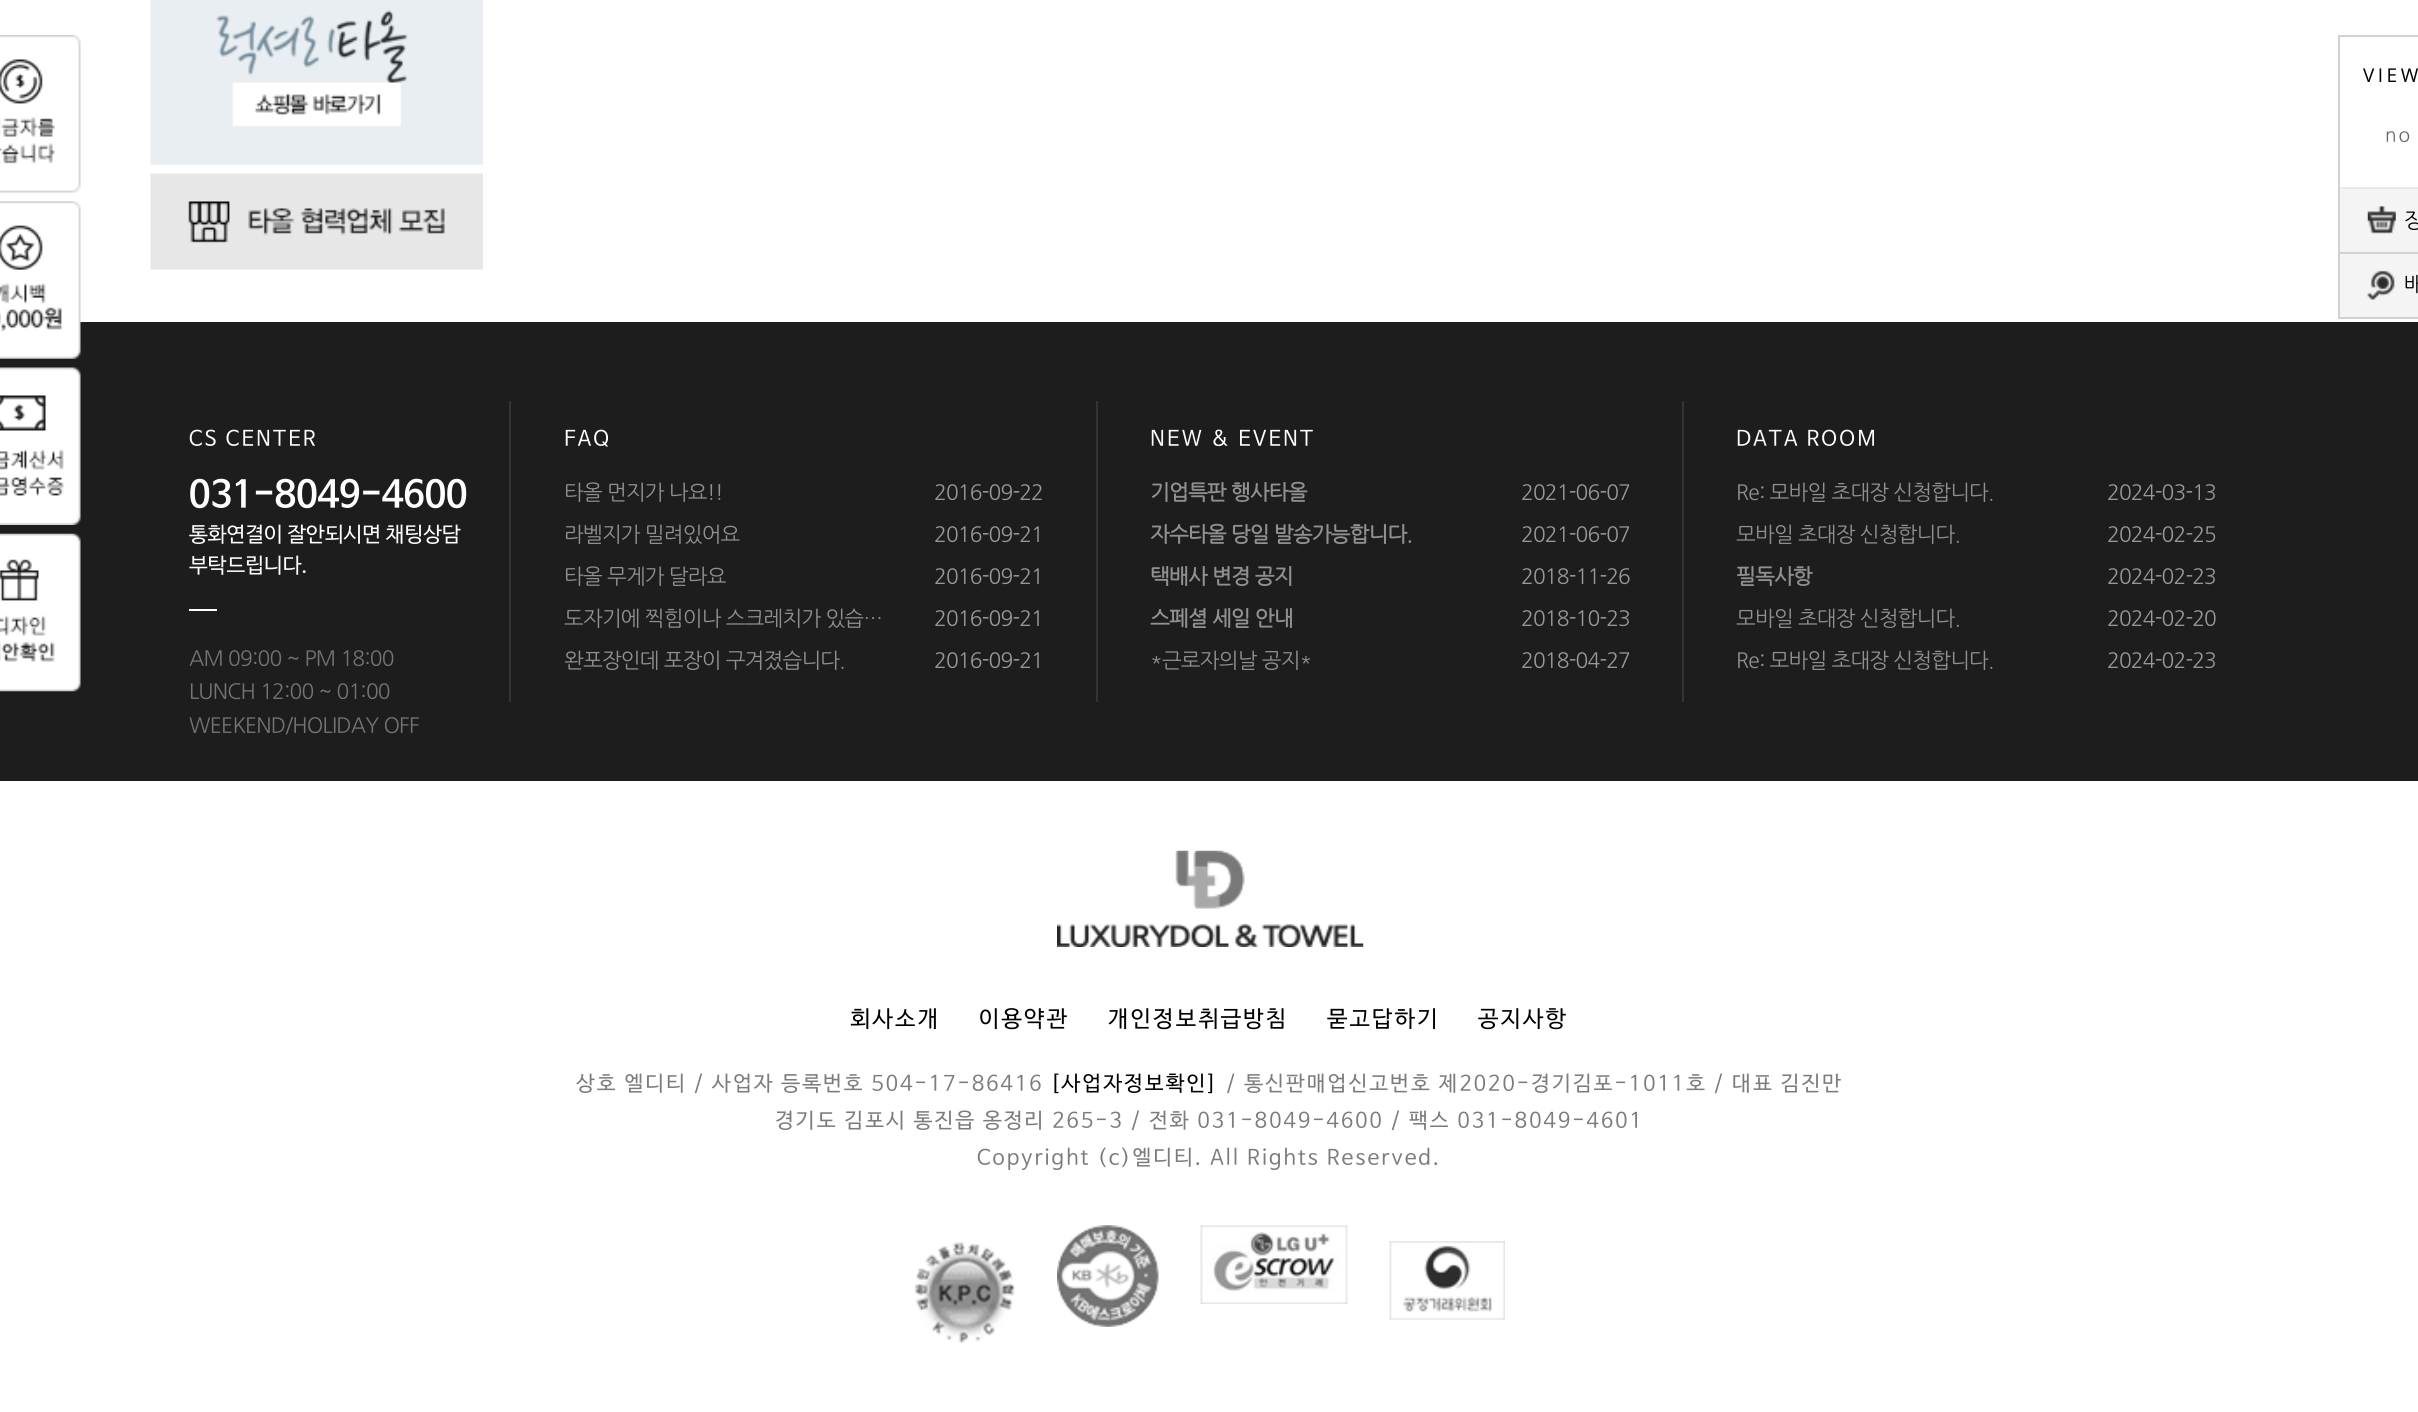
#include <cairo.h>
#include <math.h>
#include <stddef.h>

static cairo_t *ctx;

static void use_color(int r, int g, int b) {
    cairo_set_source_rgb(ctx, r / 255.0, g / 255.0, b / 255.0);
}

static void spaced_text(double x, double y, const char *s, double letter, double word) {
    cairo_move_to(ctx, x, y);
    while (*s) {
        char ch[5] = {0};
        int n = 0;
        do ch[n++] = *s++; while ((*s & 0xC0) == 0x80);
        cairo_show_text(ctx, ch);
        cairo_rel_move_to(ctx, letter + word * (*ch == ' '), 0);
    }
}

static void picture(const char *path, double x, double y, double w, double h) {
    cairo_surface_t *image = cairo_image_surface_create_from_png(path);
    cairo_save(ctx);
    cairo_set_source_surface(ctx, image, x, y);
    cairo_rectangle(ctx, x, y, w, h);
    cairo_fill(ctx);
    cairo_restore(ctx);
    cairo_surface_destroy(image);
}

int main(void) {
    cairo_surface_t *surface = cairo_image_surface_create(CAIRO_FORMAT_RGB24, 2418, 1412);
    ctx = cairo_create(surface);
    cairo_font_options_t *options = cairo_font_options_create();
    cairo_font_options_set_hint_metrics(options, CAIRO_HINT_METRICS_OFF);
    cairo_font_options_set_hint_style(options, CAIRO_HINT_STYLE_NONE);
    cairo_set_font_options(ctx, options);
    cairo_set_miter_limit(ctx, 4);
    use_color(255, 255, 255);
    cairo_paint(ctx);
    picture("img1.png", 0, 35, 81, 158);
    use_color(29, 29, 29);
    cairo_rectangle(ctx, 0, 322, 2418, 459);
    cairo_fill(ctx);
    picture("img2.png", 0, 201, 81, 158);
    picture("img3.png", 0, 367, 81, 158);
    picture("img4.png", 0, 533, 81, 159);
    picture("img5.png", 150, 0, 333, 165);
    picture("img6.png", 150, 173, 333, 97);
    cairo_rectangle(ctx, 2339, 36, 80, 282);
    use_color(209, 209, 209);
    cairo_stroke(ctx);
    cairo_select_font_face(ctx, "Open Sans", CAIRO_FONT_SLANT_NORMAL, CAIRO_FONT_WEIGHT_NORMAL);
    cairo_set_font_size(ctx, 19);
    use_color(0, 0, 0);
    spaced_text(2363, 82, "VIEW", 3.5, 0);
    cairo_select_font_face(ctx, "NanumGothic", CAIRO_FONT_SLANT_NORMAL, CAIRO_FONT_WEIGHT_NORMAL);
    use_color(102, 102, 102);
    spaced_text(2385, 141, "no", 2, 0);
    use_color(233, 233, 233);
    cairo_rectangle(ctx, 2340, 187, 78, 2);
    cairo_fill(ctx);
    use_color(244, 244, 244);
    cairo_rectangle(ctx, 2340, 189, 78, 63);
    cairo_fill(ctx);
    picture("img7.png", 2367, 206, 29, 28);
    use_color(209, 209, 209);
    cairo_rectangle(ctx, 2340, 252, 78, 2);
    cairo_fill(ctx);
    cairo_set_font_size(ctx, 21);
    use_color(0, 0, 0);
    spaced_text(2404, 227, "장", 2, 0);
    use_color(244, 244, 244);
    cairo_rectangle(ctx, 2340, 254, 78, 63);
    cairo_fill(ctx);
    picture("img8.png", 2367, 270, 28, 30);
    use_color(0, 0, 0);
    spaced_text(2404, 291, "배", 2, 0);
    cairo_select_font_face(ctx, "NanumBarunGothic", CAIRO_FONT_SLANT_NORMAL, CAIRO_FONT_WEIGHT_NORMAL);
    use_color(255, 255, 255);
    spaced_text(189, 445, "CS CENTER", 2.1, 0);
    cairo_select_font_face(ctx, "NanumBarunGothic", CAIRO_FONT_SLANT_NORMAL, CAIRO_FONT_WEIGHT_BOLD);
    cairo_set_font_size(ctx, 36.75);
    cairo_move_to(ctx, 189, 506);
    cairo_show_text(ctx, "031-8049-4600");
    cairo_select_font_face(ctx, "NanumBarunGothic", CAIRO_FONT_SLANT_NORMAL, CAIRO_FONT_WEIGHT_NORMAL);
    cairo_set_font_size(ctx, 21);
    cairo_move_to(ctx, 189, 541);
    cairo_show_text(ctx, "통화연결이 잘안되시면 채팅상담");
    cairo_move_to(ctx, 189, 572);
    cairo_show_text(ctx, "부탁드립니다.");
    cairo_rectangle(ctx, 189, 609, 28, 2);
    cairo_fill(ctx);
    cairo_select_font_face(ctx, "NanumGothic", CAIRO_FONT_SLANT_NORMAL, CAIRO_FONT_WEIGHT_NORMAL);
    use_color(116, 116, 116);
    spaced_text(189, 665, "AM 09:00 ~ PM 18:00", -0.8, 0);
    spaced_text(189, 698, "LUNCH 12:00 ~ 01:00", -0.8, 0);
    spaced_text(189, 732, "WEEKEND/HOLIDAY OFF", -0.8, 0);
    use_color(52, 52, 52);
    cairo_rectangle(ctx, 509, 401, 2, 301);
    cairo_fill(ctx);
    cairo_select_font_face(ctx, "NanumBarunGothic", CAIRO_FONT_SLANT_NORMAL, CAIRO_FONT_WEIGHT_NORMAL);
    use_color(255, 255, 255);
    spaced_text(564, 445, "FAQ", 2.1, 0);
    cairo_select_font_face(ctx, "NanumGothic", CAIRO_FONT_SLANT_NORMAL, CAIRO_FONT_WEIGHT_NORMAL);
    use_color(144, 144, 144);
    spaced_text(564, 499, "타올 먼지가 나요!!", -0.8, 0);
    use_color(153, 153, 153);
    spaced_text(934, 499, "2016-09-22", -0.8, 0);
    use_color(144, 144, 144);
    spaced_text(564, 541, "라벨지가 밀려있어요", -0.8, 0);
    use_color(153, 153, 153);
    spaced_text(934, 541, "2016-09-21", -0.8, 0);
    use_color(144, 144, 144);
    spaced_text(564, 583, "타올 무게가 달라요", -0.8, 0);
    use_color(153, 153, 153);
    spaced_text(934, 583, "2016-09-21", -0.8, 0);
    use_color(144, 144, 144);
    spaced_text(564, 625, "도자기에 찍힘이나 스크레치가 있습…", -0.8, 0);
    use_color(153, 153, 153);
    spaced_text(934, 625, "2016-09-21", -0.8, 0);
    use_color(144, 144, 144);
    spaced_text(564, 667, "완포장인데 포장이 구겨졌습니다.", -0.8, 0);
    use_color(153, 153, 153);
    spaced_text(934, 667, "2016-09-21", -0.8, 0);
    use_color(52, 52, 52);
    cairo_rectangle(ctx, 1096, 401, 2, 301);
    cairo_fill(ctx);
    cairo_select_font_face(ctx, "NanumBarunGothic", CAIRO_FONT_SLANT_NORMAL, CAIRO_FONT_WEIGHT_NORMAL);
    use_color(255, 255, 255);
    spaced_text(1150, 445, "NEW & EVENT", 2.1, 0);
    cairo_select_font_face(ctx, "NanumGothic", CAIRO_FONT_SLANT_NORMAL, CAIRO_FONT_WEIGHT_BOLD);
    use_color(144, 144, 144);
    spaced_text(1150, 499, "기업특판 행사타올", -0.8, 0);
    cairo_select_font_face(ctx, "NanumGothic", CAIRO_FONT_SLANT_NORMAL, CAIRO_FONT_WEIGHT_NORMAL);
    use_color(153, 153, 153);
    spaced_text(1521, 499, "2021-06-07", -0.8, 0);
    cairo_select_font_face(ctx, "NanumGothic", CAIRO_FONT_SLANT_NORMAL, CAIRO_FONT_WEIGHT_BOLD);
    use_color(144, 144, 144);
    spaced_text(1150, 541, "자수타올 당일 발송가능합니다.", -0.8, 0);
    cairo_select_font_face(ctx, "NanumGothic", CAIRO_FONT_SLANT_NORMAL, CAIRO_FONT_WEIGHT_NORMAL);
    use_color(153, 153, 153);
    spaced_text(1521, 541, "2021-06-07", -0.8, 0);
    cairo_select_font_face(ctx, "NanumGothic", CAIRO_FONT_SLANT_NORMAL, CAIRO_FONT_WEIGHT_BOLD);
    use_color(144, 144, 144);
    spaced_text(1150, 583, "택배사 변경 공지", -0.8, 0);
    cairo_select_font_face(ctx, "NanumGothic", CAIRO_FONT_SLANT_NORMAL, CAIRO_FONT_WEIGHT_NORMAL);
    use_color(153, 153, 153);
    spaced_text(1521, 583, "2018-11-26", -0.8, 0);
    cairo_select_font_face(ctx, "NanumGothic", CAIRO_FONT_SLANT_NORMAL, CAIRO_FONT_WEIGHT_BOLD);
    use_color(144, 144, 144);
    spaced_text(1150, 625, "스페셜 세일 안내", -0.8, 0);
    cairo_select_font_face(ctx, "NanumGothic", CAIRO_FONT_SLANT_NORMAL, CAIRO_FONT_WEIGHT_NORMAL);
    use_color(153, 153, 153);
    spaced_text(1521, 625, "2018-10-23", -0.8, 0);
    use_color(144, 144, 144);
    spaced_text(1150, 667, "*근로자의날 공지*", -0.8, 0);
    use_color(153, 153, 153);
    spaced_text(1521, 667, "2018-04-27", -0.8, 0);
    use_color(52, 52, 52);
    cairo_rectangle(ctx, 1682, 401, 2, 301);
    cairo_fill(ctx);
    cairo_select_font_face(ctx, "NanumBarunGothic", CAIRO_FONT_SLANT_NORMAL, CAIRO_FONT_WEIGHT_NORMAL);
    use_color(255, 255, 255);
    spaced_text(1736, 445, "DATA ROOM", 2.1, 0);
    cairo_select_font_face(ctx, "NanumGothic", CAIRO_FONT_SLANT_NORMAL, CAIRO_FONT_WEIGHT_NORMAL);
    use_color(144, 144, 144);
    spaced_text(1736, 499, "Re: 모바일 초대장 신청합니다.", -0.8, 0);
    use_color(153, 153, 153);
    spaced_text(2107, 499, "2024-03-13", -0.8, 0);
    use_color(144, 144, 144);
    spaced_text(1736, 541, "모바일 초대장 신청합니다.", -0.8, 0);
    use_color(153, 153, 153);
    spaced_text(2107, 541, "2024-02-25", -0.8, 0);
    cairo_select_font_face(ctx, "NanumGothic", CAIRO_FONT_SLANT_NORMAL, CAIRO_FONT_WEIGHT_BOLD);
    use_color(144, 144, 144);
    spaced_text(1736, 583, "필독사항", -0.8, 0);
    cairo_select_font_face(ctx, "NanumGothic", CAIRO_FONT_SLANT_NORMAL, CAIRO_FONT_WEIGHT_NORMAL);
    use_color(153, 153, 153);
    spaced_text(2107, 583, "2024-02-23", -0.8, 0);
    use_color(144, 144, 144);
    spaced_text(1736, 625, "모바일 초대장 신청합니다.", -0.8, 0);
    use_color(153, 153, 153);
    spaced_text(2107, 625, "2024-02-20", -0.8, 0);
    use_color(144, 144, 144);
    spaced_text(1736, 667, "Re: 모바일 초대장 신청합니다.", -0.8, 0);
    use_color(153, 153, 153);
    spaced_text(2107, 667, "2024-02-23", -0.8, 0);
    picture("img9.png", 1057, 850, 307, 97);
    cairo_select_font_face(ctx, "NanumBarunGothic", CAIRO_FONT_SLANT_NORMAL, CAIRO_FONT_WEIGHT_NORMAL);
    cairo_set_font_size(ctx, 22.75);
    use_color(0, 0, 0);
    spaced_text(850, 1026, "회사소개", 2.25, 0);
    spaced_text(979, 1026, "이용약관", 2.25, 0);
    spaced_text(1108, 1026, "개인정보취급방침", 2.25, 0);
    spaced_text(1327, 1026, "묻고답하기", 2.25, 0);
    spaced_text(1478, 1026, "공지사항", 2.25, 0);
    cairo_set_font_size(ctx, 21);
    use_color(124, 124, 124);
    spaced_text(576, 1090, "상호 엘디티 / 사업자 등록번호 504-17-86416", 2.1, 0);
    use_color(0, 0, 0);
    spaced_text(1050, 1090, "[사업자정보확인]", 2.1, 0);
    use_color(124, 124, 124);
    spaced_text(1226, 1090, "/ 통신판매업신고번호 제2020-경기김포-1011호 / 대표 김진만", 2.1, 0);
    spaced_text(775, 1127, "경기도 김포시 통진읍 옹정리 265-3 / 전화 031-8049-4600 / 팩스 031-8049-4601", 2.1, 0);
    spaced_text(977, 1164, "Copyright (c)엘디티. All Rights Reserved.", 2.1, 0);
    picture("img10.png", 914, 1241, 101, 102);
    picture("img11.png", 1057, 1225, 102, 102);
    picture("img12.png", 1200, 1225, 148, 79);
    picture("img13.png", 1389, 1241, 116, 79);
    cairo_surface_write_to_png(surface, "result.png");
    cairo_font_options_destroy(options);
    cairo_destroy(ctx);
    cairo_surface_destroy(surface);
    return 0;
}
